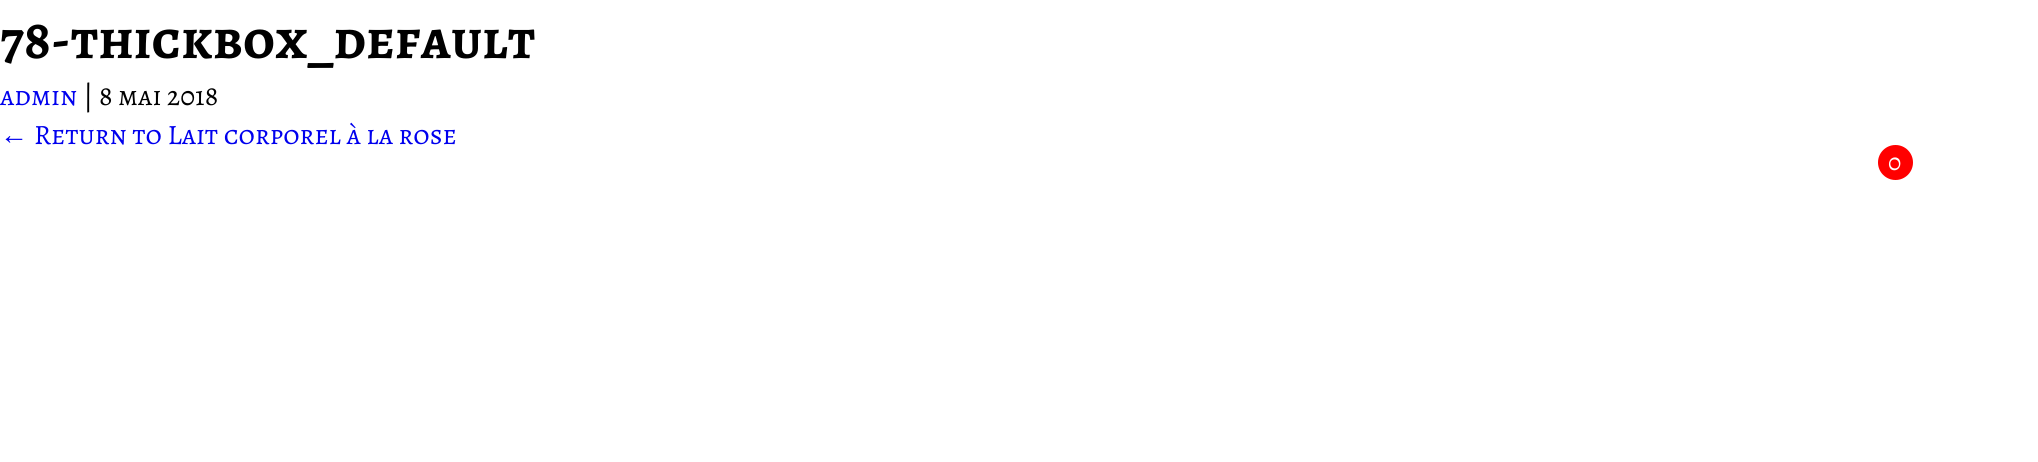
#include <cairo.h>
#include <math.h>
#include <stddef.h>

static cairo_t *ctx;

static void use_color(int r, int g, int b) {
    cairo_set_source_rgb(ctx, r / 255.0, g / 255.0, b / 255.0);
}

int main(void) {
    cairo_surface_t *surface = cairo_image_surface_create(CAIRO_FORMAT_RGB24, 2038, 462);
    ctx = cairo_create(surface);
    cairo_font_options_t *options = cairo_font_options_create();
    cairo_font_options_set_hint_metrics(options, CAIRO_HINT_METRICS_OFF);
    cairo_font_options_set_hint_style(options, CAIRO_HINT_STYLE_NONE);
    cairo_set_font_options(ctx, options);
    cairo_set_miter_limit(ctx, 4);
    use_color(255, 255, 255);
    cairo_paint(ctx);
    cairo_select_font_face(ctx, "Alegreya SC", CAIRO_FONT_SLANT_NORMAL, CAIRO_FONT_WEIGHT_BOLD);
    cairo_set_font_size(ctx, 56);
    use_color(0, 0, 0);
    cairo_move_to(ctx, 0, 58);
    cairo_show_text(ctx, "78-thickbox_default");
    cairo_select_font_face(ctx, "Alegreya SC", CAIRO_FONT_SLANT_NORMAL, CAIRO_FONT_WEIGHT_NORMAL);
    cairo_set_font_size(ctx, 28);
    use_color(0, 0, 238);
    cairo_move_to(ctx, 0, 105);
    cairo_show_text(ctx, "admin");
    use_color(0, 0, 0);
    cairo_move_to(ctx, 83, 105);
    cairo_show_text(ctx, "| 8 mai 2018");
    cairo_select_font_face(ctx, "Liberation Serif", CAIRO_FONT_SLANT_NORMAL, CAIRO_FONT_WEIGHT_NORMAL);
    use_color(0, 0, 238);
    cairo_move_to(ctx, 0, 144);
    cairo_show_text(ctx, "←");
    cairo_select_font_face(ctx, "Alegreya SC", CAIRO_FONT_SLANT_NORMAL, CAIRO_FONT_WEIGHT_NORMAL);
    cairo_move_to(ctx, 34, 144);
    cairo_show_text(ctx, "Return to Lait corporel à la rose");
    use_color(255, 0, 0);
    cairo_new_path(ctx);
    cairo_arc(ctx, 1895.5, 162.5, 17.5, 0, 2 * M_PI);
    cairo_fill(ctx);
    cairo_set_font_size(ctx, 25);
    use_color(255, 255, 255);
    cairo_move_to(ctx, 1888, 170);
    cairo_show_text(ctx, "0");
    cairo_surface_write_to_png(surface, "result.png");
    cairo_font_options_destroy(options);
    cairo_destroy(ctx);
    cairo_surface_destroy(surface);
    return 0;
}
